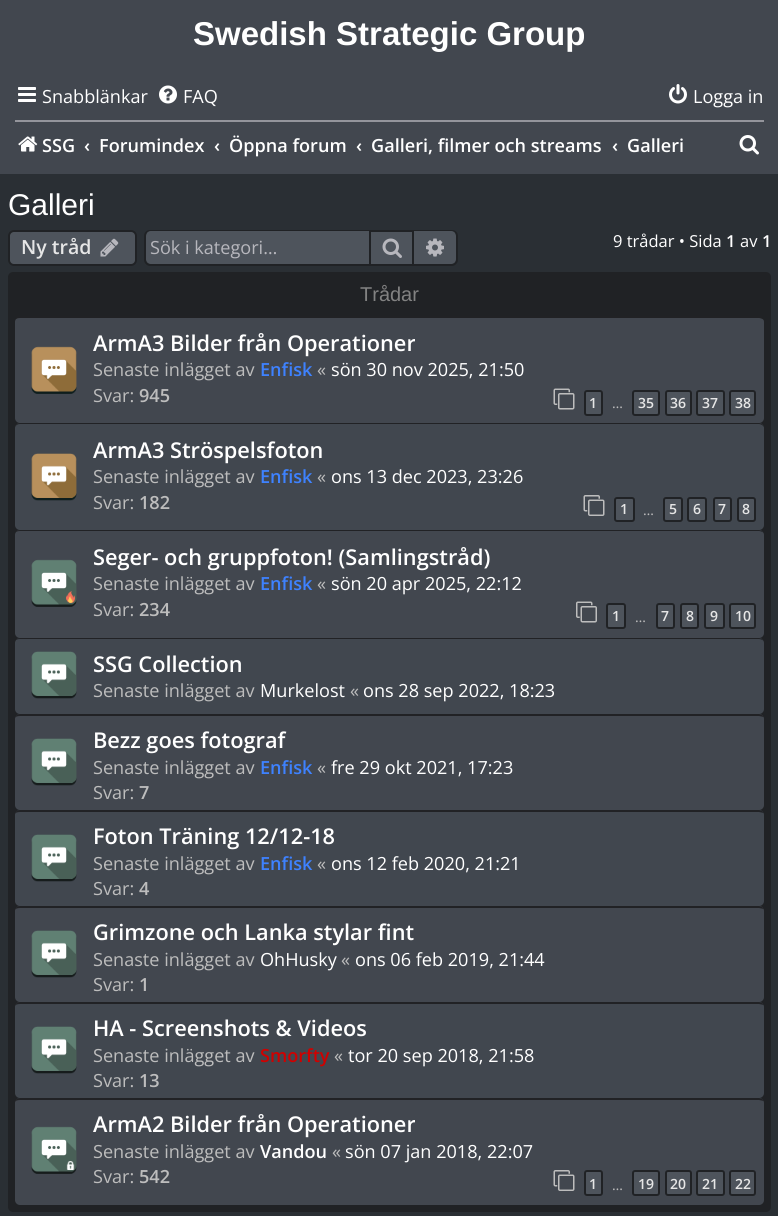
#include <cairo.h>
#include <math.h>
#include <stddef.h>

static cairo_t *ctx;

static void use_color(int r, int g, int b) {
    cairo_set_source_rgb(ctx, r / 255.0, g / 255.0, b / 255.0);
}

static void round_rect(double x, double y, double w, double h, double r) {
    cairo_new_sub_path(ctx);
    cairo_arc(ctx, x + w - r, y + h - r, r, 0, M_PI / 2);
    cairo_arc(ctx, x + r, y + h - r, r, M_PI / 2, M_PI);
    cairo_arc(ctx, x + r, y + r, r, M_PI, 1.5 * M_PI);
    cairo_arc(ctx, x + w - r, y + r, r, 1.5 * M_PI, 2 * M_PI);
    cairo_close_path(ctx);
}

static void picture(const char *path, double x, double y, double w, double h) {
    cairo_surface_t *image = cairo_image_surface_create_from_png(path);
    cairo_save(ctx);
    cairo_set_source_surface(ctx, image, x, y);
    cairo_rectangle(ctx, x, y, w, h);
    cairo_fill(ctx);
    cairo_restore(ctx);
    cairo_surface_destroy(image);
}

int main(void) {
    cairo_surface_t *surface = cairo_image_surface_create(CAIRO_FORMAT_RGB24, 778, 1216);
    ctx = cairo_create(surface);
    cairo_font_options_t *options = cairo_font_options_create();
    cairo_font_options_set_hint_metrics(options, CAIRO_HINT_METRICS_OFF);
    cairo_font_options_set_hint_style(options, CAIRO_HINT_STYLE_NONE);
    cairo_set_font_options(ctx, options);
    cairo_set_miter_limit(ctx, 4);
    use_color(42, 47, 52);
    cairo_paint(ctx);
    use_color(66, 71, 79);
    cairo_rectangle(ctx, 0, 0, 778, 174);
    cairo_fill(ctx);
    cairo_select_font_face(ctx, "Liberation Sans", CAIRO_FONT_SLANT_NORMAL, CAIRO_FONT_WEIGHT_BOLD);
    cairo_set_font_size(ctx, 33);
    use_color(255, 255, 255);
    cairo_move_to(ctx, 193, 45);
    cairo_show_text(ctx, "Swedish Strategic Group");
    picture("img1.png", 18, 87, 18, 15);
    cairo_select_font_face(ctx, "Open Sans", CAIRO_FONT_SLANT_NORMAL, CAIRO_FONT_WEIGHT_NORMAL);
    cairo_set_font_size(ctx, 18.1);
    cairo_move_to(ctx, 42, 103);
    cairo_show_text(ctx, "Snabblänkar");
    picture("img2.png", 159, 85, 18, 19);
    cairo_move_to(ctx, 183, 103);
    cairo_show_text(ctx, "FAQ");
    picture("img3.png", 669, 84, 18, 20);
    cairo_move_to(ctx, 693, 103);
    cairo_show_text(ctx, "Logga in");
    use_color(148, 149, 156);
    cairo_rectangle(ctx, 15, 120, 749, 2);
    cairo_fill(ctx);
    picture("img4.png", 18, 136, 20, 16);
    cairo_select_font_face(ctx, "Open Sans SemiBold", CAIRO_FONT_SLANT_NORMAL, CAIRO_FONT_WEIGHT_NORMAL);
    use_color(255, 255, 255);
    cairo_move_to(ctx, 42, 152);
    cairo_show_text(ctx, "SSG");
    cairo_move_to(ctx, 84, 152);
    cairo_show_text(ctx, "‹");
    cairo_move_to(ctx, 99, 152);
    cairo_show_text(ctx, "Forumindex");
    cairo_move_to(ctx, 214, 152);
    cairo_show_text(ctx, "‹");
    cairo_move_to(ctx, 229, 152);
    cairo_show_text(ctx, "Öppna forum");
    cairo_move_to(ctx, 356, 152);
    cairo_show_text(ctx, "‹");
    cairo_move_to(ctx, 371, 152);
    cairo_show_text(ctx, "Galleri, filmer och streams");
    cairo_move_to(ctx, 612, 152);
    cairo_show_text(ctx, "‹");
    cairo_move_to(ctx, 627, 152);
    cairo_show_text(ctx, "Galleri");
    picture("img5.png", 739, 135, 20, 20);
    cairo_select_font_face(ctx, "Liberation Sans", CAIRO_FONT_SLANT_NORMAL, CAIRO_FONT_WEIGHT_NORMAL);
    cairo_set_font_size(ctx, 30);
    cairo_move_to(ctx, 8, 215);
    cairo_show_text(ctx, "Galleri");
    use_color(78, 84, 92);
    round_rect(9, 231, 127, 34, 5);
    cairo_fill_preserve(ctx);
    use_color(32, 34, 37);
    cairo_stroke(ctx);
    cairo_select_font_face(ctx, "Open Sans SemiBold", CAIRO_FONT_SLANT_NORMAL, CAIRO_FONT_WEIGHT_NORMAL);
    cairo_set_font_size(ctx, 19.5);
    use_color(230, 230, 230);
    cairo_move_to(ctx, 21, 254);
    cairo_show_text(ctx, "Ny tråd");
    picture("img6.png", 100, 238, 19, 19);
    use_color(78, 84, 92);
    cairo_new_path(ctx);
    cairo_move_to(ctx, 151, 231);
    cairo_line_to(ctx, 369, 231);
    cairo_line_to(ctx, 369, 264);
    cairo_line_to(ctx, 151, 264);
    cairo_curve_to(ctx, 148, 264, 146, 262, 146, 259);
    cairo_line_to(ctx, 146, 236);
    cairo_curve_to(ctx, 146, 233, 148, 231, 151, 231);
    cairo_close_path(ctx);
    cairo_fill(ctx);
    use_color(32, 34, 37);
    cairo_set_fill_rule(ctx, CAIRO_FILL_RULE_EVEN_ODD);
    cairo_new_path(ctx);
    cairo_move_to(ctx, 150, 230);
    cairo_line_to(ctx, 369, 230);
    cairo_line_to(ctx, 369, 266);
    cairo_line_to(ctx, 150, 266);
    cairo_curve_to(ctx, 147, 266, 144, 263, 144, 260);
    cairo_line_to(ctx, 144, 236);
    cairo_curve_to(ctx, 144, 232, 147, 230, 150, 230);
    cairo_close_path(ctx);
    cairo_move_to(ctx, 150, 231);
    cairo_line_to(ctx, 369, 231);
    cairo_line_to(ctx, 369, 264);
    cairo_line_to(ctx, 150, 264);
    cairo_curve_to(ctx, 148, 264, 146, 262, 146, 260);
    cairo_line_to(ctx, 146, 236);
    cairo_curve_to(ctx, 146, 233, 148, 231, 150, 231);
    cairo_close_path(ctx);
    cairo_fill(ctx);
    cairo_select_font_face(ctx, "Open Sans", CAIRO_FONT_SLANT_NORMAL, CAIRO_FONT_WEIGHT_NORMAL);
    cairo_set_font_size(ctx, 18.1);
    use_color(183, 183, 189);
    cairo_move_to(ctx, 150, 254);
    cairo_show_text(ctx, "Sök i kategori…");
    use_color(78, 84, 92);
    cairo_rectangle(ctx, 370, 231, 43, 34);
    cairo_fill_preserve(ctx);
    use_color(32, 34, 37);
    cairo_stroke(ctx);
    picture("img7.png", 382, 238, 20, 20);
    use_color(78, 84, 92);
    cairo_new_path(ctx);
    cairo_move_to(ctx, 414, 231);
    cairo_line_to(ctx, 451, 231);
    cairo_curve_to(ctx, 454, 231, 456, 233, 456, 236);
    cairo_line_to(ctx, 456, 259);
    cairo_curve_to(ctx, 456, 262, 454, 264, 451, 264);
    cairo_line_to(ctx, 414, 264);
    cairo_close_path(ctx);
    cairo_fill(ctx);
    use_color(32, 34, 37);
    cairo_new_path(ctx);
    cairo_move_to(ctx, 414, 230);
    cairo_line_to(ctx, 452, 230);
    cairo_curve_to(ctx, 455, 230, 458, 232, 458, 236);
    cairo_line_to(ctx, 458, 260);
    cairo_curve_to(ctx, 458, 263, 455, 266, 452, 266);
    cairo_line_to(ctx, 414, 266);
    cairo_close_path(ctx);
    cairo_move_to(ctx, 414, 231);
    cairo_line_to(ctx, 452, 231);
    cairo_curve_to(ctx, 454, 231, 456, 233, 456, 236);
    cairo_line_to(ctx, 456, 260);
    cairo_curve_to(ctx, 456, 262, 454, 264, 452, 264);
    cairo_line_to(ctx, 414, 264);
    cairo_close_path(ctx);
    cairo_fill(ctx);
    picture("img8.png", 426, 238, 18, 19);
    cairo_set_font_size(ctx, 16.5);
    use_color(255, 255, 255);
    cairo_move_to(ctx, 613, 247);
    cairo_show_text(ctx, "9 trådar • Sida");
    cairo_select_font_face(ctx, "Open Sans SemiBold", CAIRO_FONT_SLANT_NORMAL, CAIRO_FONT_WEIGHT_NORMAL);
    cairo_move_to(ctx, 726, 247);
    cairo_show_text(ctx, "1");
    cairo_select_font_face(ctx, "Open Sans", CAIRO_FONT_SLANT_NORMAL, CAIRO_FONT_WEIGHT_NORMAL);
    cairo_move_to(ctx, 740, 247);
    cairo_show_text(ctx, "av");
    cairo_select_font_face(ctx, "Open Sans SemiBold", CAIRO_FONT_SLANT_NORMAL, CAIRO_FONT_WEIGHT_NORMAL);
    cairo_move_to(ctx, 762, 247);
    cairo_show_text(ctx, "1");
    use_color(32, 34, 37);
    round_rect(8, 272, 763, 940, 5);
    cairo_fill(ctx);
    cairo_select_font_face(ctx, "Liberation Sans", CAIRO_FONT_SLANT_NORMAL, CAIRO_FONT_WEIGHT_NORMAL);
    cairo_set_font_size(ctx, 20);
    use_color(130, 130, 130);
    cairo_move_to(ctx, 360, 301);
    cairo_show_text(ctx, "Trådar");
    use_color(66, 71, 79);
    round_rect(15, 317, 749, 106, 5);
    cairo_fill(ctx);
    use_color(33, 34, 37);
    cairo_set_fill_rule(ctx, CAIRO_FILL_RULE_WINDING);
    cairo_new_path(ctx);
    cairo_move_to(ctx, 20, 318);
    cairo_curve_to(ctx, 17, 318, 15, 319, 15, 321);
    cairo_curve_to(ctx, 15, 320, 16, 317, 18, 316);
    cairo_line_to(ctx, 761, 316);
    cairo_curve_to(ctx, 762, 317, 764, 319, 764, 320);
    cairo_curve_to(ctx, 763, 319, 760, 318, 759, 318);
    cairo_close_path(ctx);
    cairo_fill(ctx);
    picture("img9.png", 31, 346, 46, 48);
    cairo_select_font_face(ctx, "Open Sans SemiBold", CAIRO_FONT_SLANT_NORMAL, CAIRO_FONT_WEIGHT_NORMAL);
    cairo_set_font_size(ctx, 21.75);
    use_color(255, 255, 255);
    cairo_move_to(ctx, 93, 351);
    cairo_show_text(ctx, "ArmA3 Bilder från Operationer");
    cairo_select_font_face(ctx, "Open Sans", CAIRO_FONT_SLANT_NORMAL, CAIRO_FONT_WEIGHT_NORMAL);
    cairo_set_font_size(ctx, 18.1);
    use_color(189, 189, 189);
    cairo_move_to(ctx, 93, 376);
    cairo_show_text(ctx, "Senaste inlägget av");
    cairo_select_font_face(ctx, "Open Sans SemiBold", CAIRO_FONT_SLANT_NORMAL, CAIRO_FONT_WEIGHT_NORMAL);
    use_color(62, 130, 255);
    cairo_move_to(ctx, 260, 376);
    cairo_show_text(ctx, "Enfisk");
    cairo_select_font_face(ctx, "Open Sans", CAIRO_FONT_SLANT_NORMAL, CAIRO_FONT_WEIGHT_NORMAL);
    use_color(189, 189, 189);
    cairo_move_to(ctx, 317, 376);
    cairo_show_text(ctx, "«");
    use_color(255, 255, 255);
    cairo_move_to(ctx, 331, 376);
    cairo_show_text(ctx, "sön 30 nov 2025, 21:50");
    use_color(189, 189, 189);
    cairo_move_to(ctx, 93, 402);
    cairo_show_text(ctx, "Svar:");
    cairo_select_font_face(ctx, "Open Sans SemiBold", CAIRO_FONT_SLANT_NORMAL, CAIRO_FONT_WEIGHT_NORMAL);
    cairo_move_to(ctx, 139, 402);
    cairo_show_text(ctx, "945");
    picture("img10.png", 553, 388, 22, 22);
    use_color(78, 84, 92);
    round_rect(585, 391, 17, 24, 2);
    cairo_fill_preserve(ctx);
    use_color(32, 34, 37);
    cairo_stroke(ctx);
    cairo_set_font_size(ctx, 14);
    use_color(230, 230, 230);
    cairo_move_to(ctx, 589, 408);
    cairo_show_text(ctx, "1");
    cairo_select_font_face(ctx, "Open Sans", CAIRO_FONT_SLANT_NORMAL, CAIRO_FONT_WEIGHT_NORMAL);
    use_color(189, 189, 189);
    cairo_move_to(ctx, 612, 408);
    cairo_show_text(ctx, "…");
    use_color(78, 84, 92);
    round_rect(633, 391, 26, 24, 2);
    cairo_fill_preserve(ctx);
    use_color(32, 34, 37);
    cairo_stroke(ctx);
    cairo_select_font_face(ctx, "Open Sans SemiBold", CAIRO_FONT_SLANT_NORMAL, CAIRO_FONT_WEIGHT_NORMAL);
    use_color(230, 230, 230);
    cairo_move_to(ctx, 638, 408);
    cairo_show_text(ctx, "35");
    use_color(78, 84, 92);
    round_rect(666, 391, 25, 24, 2);
    cairo_fill_preserve(ctx);
    use_color(32, 34, 37);
    cairo_stroke(ctx);
    use_color(230, 230, 230);
    cairo_move_to(ctx, 670, 408);
    cairo_show_text(ctx, "36");
    use_color(78, 84, 92);
    round_rect(697, 391, 27, 24, 2);
    cairo_fill_preserve(ctx);
    use_color(32, 34, 37);
    cairo_stroke(ctx);
    use_color(230, 230, 230);
    cairo_move_to(ctx, 702, 408);
    cairo_show_text(ctx, "37");
    use_color(78, 84, 92);
    round_rect(730, 391, 25, 24, 2);
    cairo_fill_preserve(ctx);
    use_color(32, 34, 37);
    cairo_stroke(ctx);
    use_color(230, 230, 230);
    cairo_move_to(ctx, 735, 408);
    cairo_show_text(ctx, "38");
    use_color(65, 71, 79);
    round_rect(15, 423, 749, 107, 5);
    cairo_fill(ctx);
    use_color(33, 34, 37);
    cairo_new_path(ctx);
    cairo_move_to(ctx, 20, 423);
    cairo_curve_to(ctx, 17, 423, 15, 425, 15, 428);
    cairo_curve_to(ctx, 15, 426, 17, 424, 20, 424);
    cairo_line_to(ctx, 759, 424);
    cairo_curve_to(ctx, 760, 424, 763, 425, 764, 427);
    cairo_curve_to(ctx, 764, 425, 761, 423, 759, 423);
    cairo_close_path(ctx);
    cairo_fill(ctx);
    picture("img11.png", 31, 453, 46, 48);
    cairo_set_font_size(ctx, 21.75);
    use_color(255, 255, 255);
    cairo_move_to(ctx, 93, 458);
    cairo_show_text(ctx, "ArmA3 Ströspelsfoton");
    cairo_select_font_face(ctx, "Open Sans", CAIRO_FONT_SLANT_NORMAL, CAIRO_FONT_WEIGHT_NORMAL);
    cairo_set_font_size(ctx, 18.1);
    use_color(189, 189, 189);
    cairo_move_to(ctx, 93, 483);
    cairo_show_text(ctx, "Senaste inlägget av");
    cairo_select_font_face(ctx, "Open Sans SemiBold", CAIRO_FONT_SLANT_NORMAL, CAIRO_FONT_WEIGHT_NORMAL);
    use_color(62, 130, 255);
    cairo_move_to(ctx, 260, 483);
    cairo_show_text(ctx, "Enfisk");
    cairo_select_font_face(ctx, "Open Sans", CAIRO_FONT_SLANT_NORMAL, CAIRO_FONT_WEIGHT_NORMAL);
    use_color(189, 189, 189);
    cairo_move_to(ctx, 317, 483);
    cairo_show_text(ctx, "«");
    use_color(255, 255, 255);
    cairo_move_to(ctx, 331, 483);
    cairo_show_text(ctx, "ons 13 dec 2023, 23:26");
    use_color(189, 189, 189);
    cairo_move_to(ctx, 93, 509);
    cairo_show_text(ctx, "Svar:");
    cairo_select_font_face(ctx, "Open Sans SemiBold", CAIRO_FONT_SLANT_NORMAL, CAIRO_FONT_WEIGHT_NORMAL);
    cairo_move_to(ctx, 139, 509);
    cairo_show_text(ctx, "182");
    picture("img12.png", 583, 495, 22, 21);
    use_color(78, 84, 92);
    round_rect(615, 498, 19, 23, 2);
    cairo_fill_preserve(ctx);
    use_color(32, 34, 37);
    cairo_stroke(ctx);
    cairo_set_font_size(ctx, 14);
    use_color(230, 230, 230);
    cairo_move_to(ctx, 620, 514);
    cairo_show_text(ctx, "1");
    cairo_select_font_face(ctx, "Open Sans", CAIRO_FONT_SLANT_NORMAL, CAIRO_FONT_WEIGHT_NORMAL);
    use_color(189, 189, 189);
    cairo_move_to(ctx, 643, 515);
    cairo_show_text(ctx, "…");
    use_color(78, 84, 92);
    round_rect(664, 498, 18, 23, 2);
    cairo_fill_preserve(ctx);
    use_color(32, 34, 37);
    cairo_stroke(ctx);
    cairo_select_font_face(ctx, "Open Sans SemiBold", CAIRO_FONT_SLANT_NORMAL, CAIRO_FONT_WEIGHT_NORMAL);
    use_color(230, 230, 230);
    cairo_move_to(ctx, 669, 514);
    cairo_show_text(ctx, "5");
    use_color(78, 84, 92);
    round_rect(688, 498, 18, 23, 2);
    cairo_fill_preserve(ctx);
    use_color(32, 34, 37);
    cairo_stroke(ctx);
    use_color(230, 230, 230);
    cairo_move_to(ctx, 693, 514);
    cairo_show_text(ctx, "6");
    use_color(78, 84, 92);
    round_rect(714, 498, 17, 23, 2);
    cairo_fill_preserve(ctx);
    use_color(32, 34, 37);
    cairo_stroke(ctx);
    use_color(230, 230, 230);
    cairo_move_to(ctx, 718, 514);
    cairo_show_text(ctx, "7");
    use_color(78, 84, 92);
    round_rect(738, 498, 17, 23, 2);
    cairo_fill_preserve(ctx);
    use_color(32, 34, 37);
    cairo_stroke(ctx);
    use_color(230, 230, 230);
    cairo_move_to(ctx, 742, 514);
    cairo_show_text(ctx, "8");
    use_color(66, 71, 79);
    round_rect(15, 530, 749, 108, 5);
    cairo_fill(ctx);
    use_color(33, 34, 37);
    cairo_new_path(ctx);
    cairo_move_to(ctx, 20, 530);
    cairo_line_to(ctx, 759, 530);
    cairo_curve_to(ctx, 760, 530, 763, 531, 764, 533);
    cairo_curve_to(ctx, 763, 532, 760, 531, 759, 531);
    cairo_line_to(ctx, 20, 531);
    cairo_curve_to(ctx, 17, 531, 15, 532, 15, 534);
    cairo_curve_to(ctx, 15, 532, 17, 530, 20, 530);
    cairo_close_path(ctx);
    cairo_fill(ctx);
    picture("img13.png", 31, 559, 46, 48);
    cairo_set_font_size(ctx, 21.75);
    use_color(255, 255, 255);
    cairo_move_to(ctx, 93, 565);
    cairo_show_text(ctx, "Seger- och gruppfoton! (Samlingstråd)");
    cairo_select_font_face(ctx, "Open Sans", CAIRO_FONT_SLANT_NORMAL, CAIRO_FONT_WEIGHT_NORMAL);
    cairo_set_font_size(ctx, 18.1);
    use_color(189, 189, 189);
    cairo_move_to(ctx, 93, 590);
    cairo_show_text(ctx, "Senaste inlägget av");
    cairo_select_font_face(ctx, "Open Sans SemiBold", CAIRO_FONT_SLANT_NORMAL, CAIRO_FONT_WEIGHT_NORMAL);
    use_color(62, 130, 255);
    cairo_move_to(ctx, 260, 590);
    cairo_show_text(ctx, "Enfisk");
    cairo_select_font_face(ctx, "Open Sans", CAIRO_FONT_SLANT_NORMAL, CAIRO_FONT_WEIGHT_NORMAL);
    use_color(189, 189, 189);
    cairo_move_to(ctx, 317, 590);
    cairo_show_text(ctx, "«");
    use_color(255, 255, 255);
    cairo_move_to(ctx, 331, 590);
    cairo_show_text(ctx, "sön 20 apr 2025, 22:12");
    use_color(189, 189, 189);
    cairo_move_to(ctx, 93, 616);
    cairo_show_text(ctx, "Svar:");
    cairo_select_font_face(ctx, "Open Sans SemiBold", CAIRO_FONT_SLANT_NORMAL, CAIRO_FONT_WEIGHT_NORMAL);
    cairo_move_to(ctx, 139, 616);
    cairo_show_text(ctx, "234");
    picture("img14.png", 576, 601, 21, 22);
    use_color(78, 84, 92);
    round_rect(607, 604, 18, 24, 2);
    cairo_fill_preserve(ctx);
    use_color(32, 34, 37);
    cairo_stroke(ctx);
    cairo_set_font_size(ctx, 14);
    use_color(230, 230, 230);
    cairo_move_to(ctx, 612, 621);
    cairo_show_text(ctx, "1");
    cairo_select_font_face(ctx, "Open Sans", CAIRO_FONT_SLANT_NORMAL, CAIRO_FONT_WEIGHT_NORMAL);
    use_color(189, 189, 189);
    cairo_move_to(ctx, 635, 622);
    cairo_show_text(ctx, "…");
    use_color(78, 84, 92);
    round_rect(657, 604, 17, 24, 2);
    cairo_fill_preserve(ctx);
    use_color(32, 34, 37);
    cairo_stroke(ctx);
    cairo_select_font_face(ctx, "Open Sans SemiBold", CAIRO_FONT_SLANT_NORMAL, CAIRO_FONT_WEIGHT_NORMAL);
    use_color(230, 230, 230);
    cairo_move_to(ctx, 661, 621);
    cairo_show_text(ctx, "7");
    use_color(78, 84, 92);
    round_rect(681, 604, 17, 24, 2);
    cairo_fill_preserve(ctx);
    use_color(32, 34, 37);
    cairo_stroke(ctx);
    use_color(230, 230, 230);
    cairo_move_to(ctx, 686, 621);
    cairo_show_text(ctx, "8");
    use_color(78, 84, 92);
    round_rect(705, 604, 19, 24, 2);
    cairo_fill_preserve(ctx);
    use_color(32, 34, 37);
    cairo_stroke(ctx);
    use_color(230, 230, 230);
    cairo_move_to(ctx, 710, 621);
    cairo_show_text(ctx, "9");
    use_color(78, 84, 92);
    round_rect(730, 604, 25, 24, 2);
    cairo_fill_preserve(ctx);
    use_color(32, 34, 37);
    cairo_stroke(ctx);
    use_color(230, 230, 230);
    cairo_move_to(ctx, 735, 621);
    cairo_show_text(ctx, "10");
    use_color(65, 71, 79);
    round_rect(15, 638, 749, 76, 5);
    cairo_fill(ctx);
    use_color(33, 34, 37);
    cairo_new_path(ctx);
    cairo_move_to(ctx, 20, 638);
    cairo_line_to(ctx, 759, 638);
    cairo_curve_to(ctx, 760, 638, 763, 639, 764, 641);
    cairo_curve_to(ctx, 763, 640, 760, 639, 759, 639);
    cairo_line_to(ctx, 20, 639);
    cairo_curve_to(ctx, 17, 639, 15, 640, 15, 642);
    cairo_curve_to(ctx, 15, 640, 17, 638, 20, 638);
    cairo_close_path(ctx);
    cairo_fill(ctx);
    picture("img15.png", 31, 651, 46, 48);
    cairo_set_font_size(ctx, 21.75);
    use_color(255, 255, 255);
    cairo_move_to(ctx, 93, 672);
    cairo_show_text(ctx, "SSG Collection");
    cairo_select_font_face(ctx, "Open Sans", CAIRO_FONT_SLANT_NORMAL, CAIRO_FONT_WEIGHT_NORMAL);
    cairo_set_font_size(ctx, 18.1);
    use_color(189, 189, 189);
    cairo_move_to(ctx, 93, 697);
    cairo_show_text(ctx, "Senaste inlägget av");
    use_color(255, 255, 255);
    cairo_move_to(ctx, 260, 697);
    cairo_show_text(ctx, "Murkelost");
    use_color(189, 189, 189);
    cairo_move_to(ctx, 350, 697);
    cairo_show_text(ctx, "«");
    use_color(255, 255, 255);
    cairo_move_to(ctx, 363, 697);
    cairo_show_text(ctx, "ons 28 sep 2022, 18:23");
    use_color(66, 71, 79);
    round_rect(15, 714, 749, 96, 5);
    cairo_fill(ctx);
    use_color(33, 34, 37);
    cairo_new_path(ctx);
    cairo_move_to(ctx, 20, 714);
    cairo_curve_to(ctx, 17, 714, 15, 716, 15, 718);
    cairo_curve_to(ctx, 15, 717, 17, 716, 20, 716);
    cairo_line_to(ctx, 759, 716);
    cairo_curve_to(ctx, 760, 716, 763, 717, 764, 717);
    cairo_curve_to(ctx, 763, 715, 760, 714, 759, 714);
    cairo_close_path(ctx);
    cairo_fill(ctx);
    picture("img16.png", 31, 738, 46, 48);
    cairo_select_font_face(ctx, "Open Sans SemiBold", CAIRO_FONT_SLANT_NORMAL, CAIRO_FONT_WEIGHT_NORMAL);
    cairo_set_font_size(ctx, 21.75);
    use_color(255, 255, 255);
    cairo_move_to(ctx, 93, 748);
    cairo_show_text(ctx, "Bezz goes fotograf");
    cairo_select_font_face(ctx, "Open Sans", CAIRO_FONT_SLANT_NORMAL, CAIRO_FONT_WEIGHT_NORMAL);
    cairo_set_font_size(ctx, 18.1);
    use_color(189, 189, 189);
    cairo_move_to(ctx, 93, 774);
    cairo_show_text(ctx, "Senaste inlägget av");
    cairo_select_font_face(ctx, "Open Sans SemiBold", CAIRO_FONT_SLANT_NORMAL, CAIRO_FONT_WEIGHT_NORMAL);
    use_color(62, 130, 255);
    cairo_move_to(ctx, 260, 774);
    cairo_show_text(ctx, "Enfisk");
    cairo_select_font_face(ctx, "Open Sans", CAIRO_FONT_SLANT_NORMAL, CAIRO_FONT_WEIGHT_NORMAL);
    use_color(189, 189, 189);
    cairo_move_to(ctx, 317, 774);
    cairo_show_text(ctx, "«");
    use_color(255, 255, 255);
    cairo_move_to(ctx, 331, 774);
    cairo_show_text(ctx, "fre 29 okt 2021, 17:23");
    use_color(189, 189, 189);
    cairo_move_to(ctx, 93, 799);
    cairo_show_text(ctx, "Svar:");
    cairo_select_font_face(ctx, "Open Sans SemiBold", CAIRO_FONT_SLANT_NORMAL, CAIRO_FONT_WEIGHT_NORMAL);
    cairo_move_to(ctx, 139, 799);
    cairo_show_text(ctx, "7");
    use_color(65, 71, 79);
    round_rect(15, 810, 749, 96, 5);
    cairo_fill(ctx);
    use_color(33, 34, 37);
    cairo_new_path(ctx);
    cairo_move_to(ctx, 20, 810);
    cairo_curve_to(ctx, 17, 810, 15, 812, 15, 814);
    cairo_curve_to(ctx, 15, 813, 17, 812, 20, 812);
    cairo_line_to(ctx, 759, 812);
    cairo_curve_to(ctx, 760, 812, 763, 813, 764, 813);
    cairo_curve_to(ctx, 763, 811, 760, 810, 759, 810);
    cairo_close_path(ctx);
    cairo_fill(ctx);
    picture("img15.png", 31, 834, 46, 48);
    cairo_set_font_size(ctx, 21.75);
    use_color(255, 255, 255);
    cairo_move_to(ctx, 93, 844);
    cairo_show_text(ctx, "Foton Träning 12/12-18");
    cairo_select_font_face(ctx, "Open Sans", CAIRO_FONT_SLANT_NORMAL, CAIRO_FONT_WEIGHT_NORMAL);
    cairo_set_font_size(ctx, 18.1);
    use_color(189, 189, 189);
    cairo_move_to(ctx, 93, 870);
    cairo_show_text(ctx, "Senaste inlägget av");
    cairo_select_font_face(ctx, "Open Sans SemiBold", CAIRO_FONT_SLANT_NORMAL, CAIRO_FONT_WEIGHT_NORMAL);
    use_color(62, 130, 255);
    cairo_move_to(ctx, 260, 870);
    cairo_show_text(ctx, "Enfisk");
    cairo_select_font_face(ctx, "Open Sans", CAIRO_FONT_SLANT_NORMAL, CAIRO_FONT_WEIGHT_NORMAL);
    use_color(189, 189, 189);
    cairo_move_to(ctx, 317, 870);
    cairo_show_text(ctx, "«");
    use_color(255, 255, 255);
    cairo_move_to(ctx, 331, 870);
    cairo_show_text(ctx, "ons 12 feb 2020, 21:21");
    use_color(189, 189, 189);
    cairo_move_to(ctx, 93, 895);
    cairo_show_text(ctx, "Svar:");
    cairo_select_font_face(ctx, "Open Sans SemiBold", CAIRO_FONT_SLANT_NORMAL, CAIRO_FONT_WEIGHT_NORMAL);
    cairo_move_to(ctx, 139, 895);
    cairo_show_text(ctx, "4");
    use_color(66, 71, 79);
    round_rect(15, 906, 749, 96, 5);
    cairo_fill(ctx);
    use_color(33, 34, 37);
    cairo_new_path(ctx);
    cairo_move_to(ctx, 20, 906);
    cairo_curve_to(ctx, 17, 906, 15, 908, 15, 910);
    cairo_curve_to(ctx, 15, 909, 17, 908, 20, 908);
    cairo_line_to(ctx, 759, 908);
    cairo_curve_to(ctx, 760, 908, 763, 909, 764, 909);
    cairo_curve_to(ctx, 763, 907, 760, 906, 759, 906);
    cairo_close_path(ctx);
    cairo_fill(ctx);
    picture("img16.png", 31, 930, 46, 48);
    cairo_set_font_size(ctx, 21.75);
    use_color(255, 255, 255);
    cairo_move_to(ctx, 93, 940);
    cairo_show_text(ctx, "Grimzone och Lanka stylar fint");
    cairo_select_font_face(ctx, "Open Sans", CAIRO_FONT_SLANT_NORMAL, CAIRO_FONT_WEIGHT_NORMAL);
    cairo_set_font_size(ctx, 18.1);
    use_color(189, 189, 189);
    cairo_move_to(ctx, 93, 966);
    cairo_show_text(ctx, "Senaste inlägget av");
    use_color(255, 255, 255);
    cairo_move_to(ctx, 260, 966);
    cairo_show_text(ctx, "OhHusky");
    use_color(189, 189, 189);
    cairo_move_to(ctx, 341, 966);
    cairo_show_text(ctx, "«");
    use_color(255, 255, 255);
    cairo_move_to(ctx, 355, 966);
    cairo_show_text(ctx, "ons 06 feb 2019, 21:44");
    use_color(189, 189, 189);
    cairo_move_to(ctx, 93, 991);
    cairo_show_text(ctx, "Svar:");
    cairo_select_font_face(ctx, "Open Sans SemiBold", CAIRO_FONT_SLANT_NORMAL, CAIRO_FONT_WEIGHT_NORMAL);
    cairo_move_to(ctx, 139, 991);
    cairo_show_text(ctx, "1");
    use_color(65, 71, 79);
    round_rect(15, 1002, 749, 96, 5);
    cairo_fill(ctx);
    use_color(33, 34, 37);
    cairo_new_path(ctx);
    cairo_move_to(ctx, 20, 1002);
    cairo_curve_to(ctx, 17, 1002, 15, 1004, 15, 1006);
    cairo_curve_to(ctx, 15, 1005, 17, 1004, 20, 1004);
    cairo_line_to(ctx, 759, 1004);
    cairo_curve_to(ctx, 760, 1004, 763, 1005, 764, 1005);
    cairo_curve_to(ctx, 763, 1003, 760, 1002, 759, 1002);
    cairo_close_path(ctx);
    cairo_fill(ctx);
    picture("img15.png", 31, 1026, 46, 48);
    cairo_set_font_size(ctx, 21.75);
    use_color(255, 255, 255);
    cairo_move_to(ctx, 93, 1036);
    cairo_show_text(ctx, "HA - Screenshots & Videos");
    cairo_select_font_face(ctx, "Open Sans", CAIRO_FONT_SLANT_NORMAL, CAIRO_FONT_WEIGHT_NORMAL);
    cairo_set_font_size(ctx, 18.1);
    use_color(189, 189, 189);
    cairo_move_to(ctx, 93, 1062);
    cairo_show_text(ctx, "Senaste inlägget av");
    cairo_select_font_face(ctx, "Open Sans SemiBold", CAIRO_FONT_SLANT_NORMAL, CAIRO_FONT_WEIGHT_NORMAL);
    use_color(208, 0, 0);
    cairo_move_to(ctx, 260, 1062);
    cairo_show_text(ctx, "Smorfty");
    cairo_select_font_face(ctx, "Open Sans", CAIRO_FONT_SLANT_NORMAL, CAIRO_FONT_WEIGHT_NORMAL);
    use_color(189, 189, 189);
    cairo_move_to(ctx, 334, 1062);
    cairo_show_text(ctx, "«");
    use_color(255, 255, 255);
    cairo_move_to(ctx, 348, 1062);
    cairo_show_text(ctx, "tor 20 sep 2018, 21:58");
    use_color(189, 189, 189);
    cairo_move_to(ctx, 93, 1087);
    cairo_show_text(ctx, "Svar:");
    cairo_select_font_face(ctx, "Open Sans SemiBold", CAIRO_FONT_SLANT_NORMAL, CAIRO_FONT_WEIGHT_NORMAL);
    cairo_move_to(ctx, 139, 1087);
    cairo_show_text(ctx, "13");
    use_color(66, 71, 79);
    round_rect(15, 1098, 749, 107, 5);
    cairo_fill(ctx);
    use_color(33, 34, 37);
    cairo_new_path(ctx);
    cairo_move_to(ctx, 20, 1098);
    cairo_curve_to(ctx, 17, 1098, 15, 1100, 15, 1102);
    cairo_curve_to(ctx, 15, 1101, 17, 1100, 20, 1100);
    cairo_line_to(ctx, 759, 1100);
    cairo_curve_to(ctx, 760, 1100, 763, 1101, 764, 1101);
    cairo_curve_to(ctx, 763, 1099, 760, 1098, 759, 1098);
    cairo_close_path(ctx);
    cairo_fill(ctx);
    picture("img17.png", 31, 1126, 46, 48);
    cairo_set_font_size(ctx, 21.75);
    use_color(255, 255, 255);
    cairo_move_to(ctx, 93, 1132);
    cairo_show_text(ctx, "ArmA2 Bilder från Operationer");
    cairo_select_font_face(ctx, "Open Sans", CAIRO_FONT_SLANT_NORMAL, CAIRO_FONT_WEIGHT_NORMAL);
    cairo_set_font_size(ctx, 18.1);
    use_color(189, 189, 189);
    cairo_move_to(ctx, 93, 1158);
    cairo_show_text(ctx, "Senaste inlägget av");
    cairo_select_font_face(ctx, "Open Sans SemiBold", CAIRO_FONT_SLANT_NORMAL, CAIRO_FONT_WEIGHT_NORMAL);
    use_color(255, 255, 255);
    cairo_move_to(ctx, 260, 1158);
    cairo_show_text(ctx, "Vandou");
    cairo_select_font_face(ctx, "Open Sans", CAIRO_FONT_SLANT_NORMAL, CAIRO_FONT_WEIGHT_NORMAL);
    use_color(189, 189, 189);
    cairo_move_to(ctx, 332, 1158);
    cairo_show_text(ctx, "«");
    use_color(255, 255, 255);
    cairo_move_to(ctx, 345, 1158);
    cairo_show_text(ctx, "sön 07 jan 2018, 22:07");
    use_color(189, 189, 189);
    cairo_move_to(ctx, 93, 1183);
    cairo_show_text(ctx, "Svar:");
    cairo_select_font_face(ctx, "Open Sans SemiBold", CAIRO_FONT_SLANT_NORMAL, CAIRO_FONT_WEIGHT_NORMAL);
    cairo_move_to(ctx, 139, 1183);
    cairo_show_text(ctx, "542");
    picture("img18.png", 553, 1170, 22, 21);
    use_color(78, 84, 92);
    round_rect(585, 1171, 17, 24, 2);
    cairo_fill_preserve(ctx);
    use_color(32, 34, 37);
    cairo_stroke(ctx);
    cairo_set_font_size(ctx, 14);
    use_color(230, 230, 230);
    cairo_move_to(ctx, 589, 1189);
    cairo_show_text(ctx, "1");
    use_color(78, 84, 92);
    round_rect(633, 1171, 26, 24, 2);
    cairo_fill_preserve(ctx);
    use_color(32, 34, 37);
    cairo_stroke(ctx);
    use_color(230, 230, 230);
    cairo_move_to(ctx, 638, 1189);
    cairo_show_text(ctx, "19");
    use_color(78, 84, 92);
    round_rect(666, 1171, 25, 24, 2);
    cairo_fill_preserve(ctx);
    use_color(32, 34, 37);
    cairo_stroke(ctx);
    use_color(230, 230, 230);
    cairo_move_to(ctx, 670, 1189);
    cairo_show_text(ctx, "20");
    use_color(78, 84, 92);
    round_rect(697, 1171, 27, 24, 2);
    cairo_fill_preserve(ctx);
    use_color(32, 34, 37);
    cairo_stroke(ctx);
    use_color(230, 230, 230);
    cairo_move_to(ctx, 702, 1189);
    cairo_show_text(ctx, "21");
    use_color(78, 84, 92);
    round_rect(730, 1171, 25, 24, 2);
    cairo_fill_preserve(ctx);
    use_color(32, 34, 37);
    cairo_stroke(ctx);
    use_color(230, 230, 230);
    cairo_move_to(ctx, 735, 1189);
    cairo_show_text(ctx, "22");
    cairo_select_font_face(ctx, "Open Sans", CAIRO_FONT_SLANT_NORMAL, CAIRO_FONT_WEIGHT_NORMAL);
    use_color(189, 189, 189);
    cairo_move_to(ctx, 612, 1190);
    cairo_show_text(ctx, "…");
    cairo_surface_write_to_png(surface, "result.png");
    cairo_font_options_destroy(options);
    cairo_destroy(ctx);
    cairo_surface_destroy(surface);
    return 0;
}
